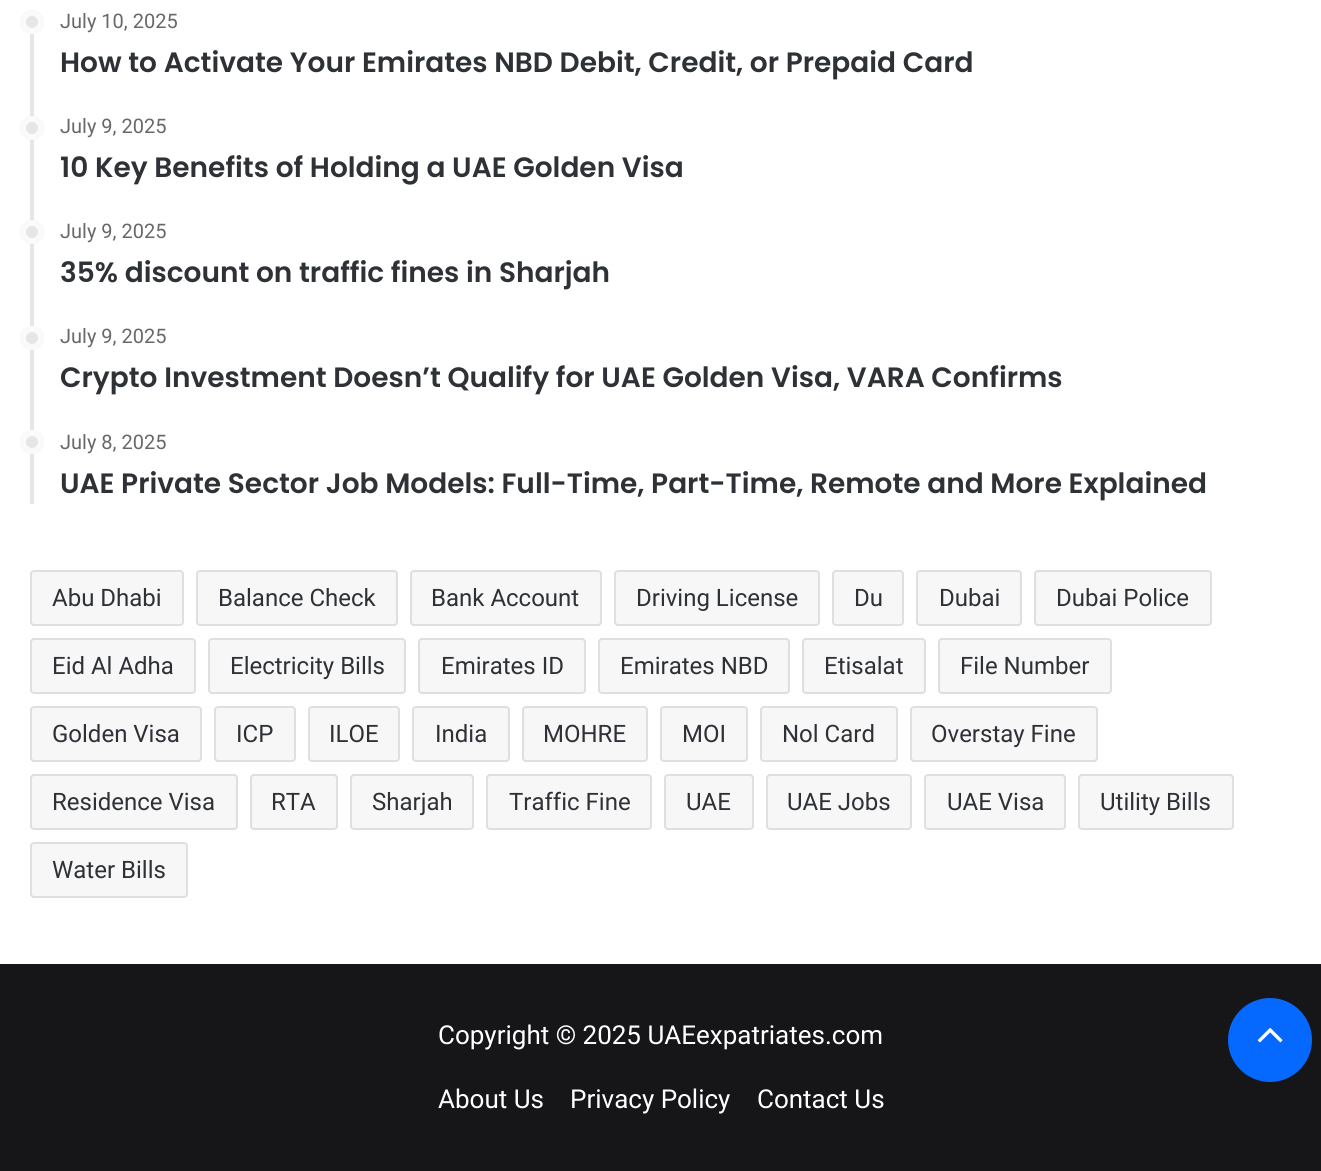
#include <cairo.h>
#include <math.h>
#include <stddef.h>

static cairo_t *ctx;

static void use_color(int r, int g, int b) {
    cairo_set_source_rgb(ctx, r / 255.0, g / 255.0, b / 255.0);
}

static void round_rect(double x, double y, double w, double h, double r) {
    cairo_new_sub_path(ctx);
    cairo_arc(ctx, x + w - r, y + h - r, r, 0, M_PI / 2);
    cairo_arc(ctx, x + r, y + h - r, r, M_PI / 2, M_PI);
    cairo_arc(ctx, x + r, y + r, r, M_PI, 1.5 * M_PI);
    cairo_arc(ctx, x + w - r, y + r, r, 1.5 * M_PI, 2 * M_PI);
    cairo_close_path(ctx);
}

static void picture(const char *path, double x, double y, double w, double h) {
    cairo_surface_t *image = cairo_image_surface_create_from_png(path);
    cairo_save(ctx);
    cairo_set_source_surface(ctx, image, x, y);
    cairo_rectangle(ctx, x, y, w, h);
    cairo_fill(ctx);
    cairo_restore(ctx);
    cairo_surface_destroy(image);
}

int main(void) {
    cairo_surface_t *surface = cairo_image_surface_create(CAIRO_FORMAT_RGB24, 1321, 1171);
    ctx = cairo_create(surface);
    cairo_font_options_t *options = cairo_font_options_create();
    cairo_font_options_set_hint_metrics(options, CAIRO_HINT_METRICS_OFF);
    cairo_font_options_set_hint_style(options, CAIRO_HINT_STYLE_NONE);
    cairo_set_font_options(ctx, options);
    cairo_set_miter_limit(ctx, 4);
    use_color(255, 255, 255);
    cairo_paint(ctx);
    use_color(230, 230, 230);
    cairo_rectangle(ctx, 30, 10, 4, 494);
    cairo_fill(ctx);
    cairo_arc(ctx, 32, 22, 12, 0, 2 * M_PI);
    cairo_fill(ctx);
    cairo_arc(ctx, 32, 22, 9, 0, 2 * M_PI);
    cairo_set_source_rgba(ctx, 1, 1, 1, 0.8);
    cairo_set_line_width(ctx, 6);
    cairo_stroke(ctx);
    cairo_select_font_face(ctx, "Roboto", CAIRO_FONT_SLANT_NORMAL, CAIRO_FONT_WEIGHT_NORMAL);
    cairo_set_font_size(ctx, 20);
    use_color(104, 104, 104);
    cairo_move_to(ctx, 60, 28);
    cairo_show_text(ctx, "July 10, 2025");
    cairo_select_font_face(ctx, "Poppins SemiBold", CAIRO_FONT_SLANT_NORMAL, CAIRO_FONT_WEIGHT_NORMAL);
    cairo_set_font_size(ctx, 28);
    use_color(46, 49, 54);
    cairo_move_to(ctx, 60, 72);
    cairo_show_text(ctx, "How to Activate Your Emirates NBD Debit, Credit, or Prepaid Card");
    use_color(230, 230, 230);
    cairo_new_path(ctx);
    cairo_arc(ctx, 32, 128, 12, 0, 2 * M_PI);
    cairo_fill(ctx);
    cairo_arc(ctx, 32, 128, 9, 0, 2 * M_PI);
    cairo_set_source_rgba(ctx, 1, 1, 1, 0.8);
    cairo_stroke(ctx);
    cairo_select_font_face(ctx, "Roboto", CAIRO_FONT_SLANT_NORMAL, CAIRO_FONT_WEIGHT_NORMAL);
    cairo_set_font_size(ctx, 20);
    use_color(104, 104, 104);
    cairo_move_to(ctx, 60, 133);
    cairo_show_text(ctx, "July 9, 2025");
    cairo_select_font_face(ctx, "Poppins SemiBold", CAIRO_FONT_SLANT_NORMAL, CAIRO_FONT_WEIGHT_NORMAL);
    cairo_set_font_size(ctx, 28);
    use_color(46, 49, 54);
    cairo_move_to(ctx, 60, 177);
    cairo_show_text(ctx, "10 Key Benefits of Holding a UAE Golden Visa");
    use_color(230, 230, 230);
    cairo_new_path(ctx);
    cairo_arc(ctx, 32, 232, 12, 0, 2 * M_PI);
    cairo_fill(ctx);
    cairo_arc(ctx, 32, 232, 9, 0, 2 * M_PI);
    cairo_set_source_rgba(ctx, 1, 1, 1, 0.8);
    cairo_stroke(ctx);
    cairo_select_font_face(ctx, "Roboto", CAIRO_FONT_SLANT_NORMAL, CAIRO_FONT_WEIGHT_NORMAL);
    cairo_set_font_size(ctx, 20);
    use_color(104, 104, 104);
    cairo_move_to(ctx, 60, 238);
    cairo_show_text(ctx, "July 9, 2025");
    cairo_select_font_face(ctx, "Poppins SemiBold", CAIRO_FONT_SLANT_NORMAL, CAIRO_FONT_WEIGHT_NORMAL);
    cairo_set_font_size(ctx, 28);
    use_color(46, 49, 54);
    cairo_move_to(ctx, 60, 282);
    cairo_show_text(ctx, "35% discount on traffic fines in Sharjah");
    use_color(230, 230, 230);
    cairo_new_path(ctx);
    cairo_arc(ctx, 32, 338, 12, 0, 2 * M_PI);
    cairo_fill(ctx);
    cairo_arc(ctx, 32, 338, 9, 0, 2 * M_PI);
    cairo_set_source_rgba(ctx, 1, 1, 1, 0.8);
    cairo_stroke(ctx);
    cairo_select_font_face(ctx, "Roboto", CAIRO_FONT_SLANT_NORMAL, CAIRO_FONT_WEIGHT_NORMAL);
    cairo_set_font_size(ctx, 20);
    use_color(104, 104, 104);
    cairo_move_to(ctx, 60, 343);
    cairo_show_text(ctx, "July 9, 2025");
    cairo_select_font_face(ctx, "Poppins SemiBold", CAIRO_FONT_SLANT_NORMAL, CAIRO_FONT_WEIGHT_NORMAL);
    cairo_set_font_size(ctx, 28);
    use_color(46, 49, 54);
    cairo_move_to(ctx, 60, 387);
    cairo_show_text(ctx, "Crypto Investment Doesn’t Qualify for UAE Golden Visa, VARA Confirms");
    use_color(230, 230, 230);
    cairo_new_path(ctx);
    cairo_arc(ctx, 32, 442, 12, 0, 2 * M_PI);
    cairo_fill(ctx);
    cairo_arc(ctx, 32, 442, 9, 0, 2 * M_PI);
    cairo_set_source_rgba(ctx, 1, 1, 1, 0.8);
    cairo_stroke(ctx);
    cairo_select_font_face(ctx, "Roboto", CAIRO_FONT_SLANT_NORMAL, CAIRO_FONT_WEIGHT_NORMAL);
    cairo_set_font_size(ctx, 20);
    use_color(104, 104, 104);
    cairo_move_to(ctx, 60, 449);
    cairo_show_text(ctx, "July 8, 2025");
    cairo_select_font_face(ctx, "Poppins SemiBold", CAIRO_FONT_SLANT_NORMAL, CAIRO_FONT_WEIGHT_NORMAL);
    cairo_set_font_size(ctx, 28);
    use_color(46, 49, 54);
    cairo_move_to(ctx, 60, 493);
    cairo_show_text(ctx, "UAE Private Sector Job Models: Full-Time, Part-Time, Remote and More Explained");
    use_color(247, 247, 247);
    round_rect(30, 570, 154, 56, 4);
    cairo_fill(ctx);
    round_rect(31, 571, 152, 54, 3);
    cairo_set_source_rgba(ctx, 0.012, 0.012, 0.012, 0.1);
    cairo_set_line_width(ctx, 2);
    cairo_stroke(ctx);
    cairo_select_font_face(ctx, "Roboto", CAIRO_FONT_SLANT_NORMAL, CAIRO_FONT_WEIGHT_NORMAL);
    cairo_set_font_size(ctx, 24);
    use_color(46, 49, 54);
    cairo_move_to(ctx, 52, 606);
    cairo_show_text(ctx, "Abu Dhabi");
    use_color(247, 247, 247);
    round_rect(196, 570, 202, 56, 4);
    cairo_fill(ctx);
    round_rect(197, 571, 200, 54, 3);
    cairo_set_source_rgba(ctx, 0.012, 0.012, 0.012, 0.1);
    cairo_stroke(ctx);
    use_color(46, 49, 54);
    cairo_move_to(ctx, 218, 606);
    cairo_show_text(ctx, "Balance Check");
    use_color(247, 247, 247);
    round_rect(410, 570, 192, 56, 4);
    cairo_fill(ctx);
    round_rect(411, 571, 190, 54, 3);
    cairo_set_source_rgba(ctx, 0.012, 0.012, 0.012, 0.1);
    cairo_stroke(ctx);
    use_color(46, 49, 54);
    cairo_move_to(ctx, 431, 606);
    cairo_show_text(ctx, "Bank Account");
    use_color(247, 247, 247);
    round_rect(614, 570, 206, 56, 4);
    cairo_fill(ctx);
    round_rect(615, 571, 204, 54, 3);
    cairo_set_source_rgba(ctx, 0.012, 0.012, 0.012, 0.1);
    cairo_stroke(ctx);
    use_color(46, 49, 54);
    cairo_move_to(ctx, 636, 606);
    cairo_show_text(ctx, "Driving License");
    use_color(247, 247, 247);
    round_rect(832, 570, 72, 56, 4);
    cairo_fill(ctx);
    round_rect(833, 571, 70, 54, 3);
    cairo_set_source_rgba(ctx, 0.012, 0.012, 0.012, 0.1);
    cairo_stroke(ctx);
    use_color(46, 49, 54);
    cairo_move_to(ctx, 854, 606);
    cairo_show_text(ctx, "Du");
    use_color(247, 247, 247);
    round_rect(916, 570, 106, 56, 4);
    cairo_fill(ctx);
    round_rect(917, 571, 104, 54, 3);
    cairo_set_source_rgba(ctx, 0.012, 0.012, 0.012, 0.1);
    cairo_stroke(ctx);
    use_color(46, 49, 54);
    cairo_move_to(ctx, 939, 606);
    cairo_show_text(ctx, "Dubai");
    use_color(247, 247, 247);
    round_rect(1034, 570, 178, 56, 4);
    cairo_fill(ctx);
    round_rect(1035, 571, 176, 54, 3);
    cairo_set_source_rgba(ctx, 0.012, 0.012, 0.012, 0.1);
    cairo_stroke(ctx);
    use_color(46, 49, 54);
    cairo_move_to(ctx, 1056, 606);
    cairo_show_text(ctx, "Dubai Police");
    use_color(247, 247, 247);
    round_rect(30, 638, 166, 56, 4);
    cairo_fill(ctx);
    round_rect(31, 639, 164, 54, 3);
    cairo_set_source_rgba(ctx, 0.012, 0.012, 0.012, 0.1);
    cairo_stroke(ctx);
    use_color(46, 49, 54);
    cairo_move_to(ctx, 52, 674);
    cairo_show_text(ctx, "Eid Al Adha");
    use_color(247, 247, 247);
    round_rect(208, 638, 198, 56, 4);
    cairo_fill(ctx);
    round_rect(209, 639, 196, 54, 3);
    cairo_set_source_rgba(ctx, 0.012, 0.012, 0.012, 0.1);
    cairo_stroke(ctx);
    use_color(46, 49, 54);
    cairo_move_to(ctx, 230, 674);
    cairo_show_text(ctx, "Electricity Bills");
    use_color(247, 247, 247);
    round_rect(418, 638, 168, 56, 4);
    cairo_fill(ctx);
    round_rect(419, 639, 166, 54, 3);
    cairo_set_source_rgba(ctx, 0.012, 0.012, 0.012, 0.1);
    cairo_stroke(ctx);
    use_color(46, 49, 54);
    cairo_move_to(ctx, 441, 674);
    cairo_show_text(ctx, "Emirates ID");
    use_color(247, 247, 247);
    round_rect(598, 638, 192, 56, 4);
    cairo_fill(ctx);
    round_rect(599, 639, 190, 54, 3);
    cairo_set_source_rgba(ctx, 0.012, 0.012, 0.012, 0.1);
    cairo_stroke(ctx);
    use_color(46, 49, 54);
    cairo_move_to(ctx, 620, 674);
    cairo_show_text(ctx, "Emirates NBD");
    use_color(247, 247, 247);
    round_rect(802, 638, 124, 56, 4);
    cairo_fill(ctx);
    round_rect(803, 639, 122, 54, 3);
    cairo_set_source_rgba(ctx, 0.012, 0.012, 0.012, 0.1);
    cairo_stroke(ctx);
    use_color(46, 49, 54);
    cairo_move_to(ctx, 824, 674);
    cairo_show_text(ctx, "Etisalat");
    use_color(247, 247, 247);
    round_rect(938, 638, 174, 56, 4);
    cairo_fill(ctx);
    round_rect(939, 639, 172, 54, 3);
    cairo_set_source_rgba(ctx, 0.012, 0.012, 0.012, 0.1);
    cairo_stroke(ctx);
    use_color(46, 49, 54);
    cairo_move_to(ctx, 960, 674);
    cairo_show_text(ctx, "File Number");
    use_color(247, 247, 247);
    round_rect(30, 706, 172, 56, 4);
    cairo_fill(ctx);
    round_rect(31, 707, 170, 54, 3);
    cairo_set_source_rgba(ctx, 0.012, 0.012, 0.012, 0.1);
    cairo_stroke(ctx);
    use_color(46, 49, 54);
    cairo_move_to(ctx, 52, 742);
    cairo_show_text(ctx, "Golden Visa");
    use_color(247, 247, 247);
    round_rect(214, 706, 82, 56, 4);
    cairo_fill(ctx);
    round_rect(215, 707, 80, 54, 3);
    cairo_set_source_rgba(ctx, 0.012, 0.012, 0.012, 0.1);
    cairo_stroke(ctx);
    use_color(46, 49, 54);
    cairo_move_to(ctx, 236, 742);
    cairo_show_text(ctx, "ICP");
    use_color(247, 247, 247);
    round_rect(308, 706, 92, 56, 4);
    cairo_fill(ctx);
    round_rect(309, 707, 90, 54, 3);
    cairo_set_source_rgba(ctx, 0.012, 0.012, 0.012, 0.1);
    cairo_stroke(ctx);
    use_color(46, 49, 54);
    cairo_move_to(ctx, 329, 742);
    cairo_show_text(ctx, "ILOE");
    use_color(247, 247, 247);
    round_rect(412, 706, 98, 56, 4);
    cairo_fill(ctx);
    round_rect(413, 707, 96, 54, 3);
    cairo_set_source_rgba(ctx, 0.012, 0.012, 0.012, 0.1);
    cairo_stroke(ctx);
    use_color(46, 49, 54);
    cairo_move_to(ctx, 435, 742);
    cairo_show_text(ctx, "India");
    use_color(247, 247, 247);
    round_rect(522, 706, 126, 56, 4);
    cairo_fill(ctx);
    round_rect(523, 707, 124, 54, 3);
    cairo_set_source_rgba(ctx, 0.012, 0.012, 0.012, 0.1);
    cairo_stroke(ctx);
    use_color(46, 49, 54);
    cairo_move_to(ctx, 543, 742);
    cairo_show_text(ctx, "MOHRE");
    use_color(247, 247, 247);
    round_rect(660, 706, 88, 56, 4);
    cairo_fill(ctx);
    round_rect(661, 707, 86, 54, 3);
    cairo_set_source_rgba(ctx, 0.012, 0.012, 0.012, 0.1);
    cairo_stroke(ctx);
    use_color(46, 49, 54);
    cairo_move_to(ctx, 682, 742);
    cairo_show_text(ctx, "MOI");
    use_color(247, 247, 247);
    round_rect(760, 706, 138, 56, 4);
    cairo_fill(ctx);
    round_rect(761, 707, 136, 54, 3);
    cairo_set_source_rgba(ctx, 0.012, 0.012, 0.012, 0.1);
    cairo_stroke(ctx);
    use_color(46, 49, 54);
    cairo_move_to(ctx, 782, 742);
    cairo_show_text(ctx, "Nol Card");
    use_color(247, 247, 247);
    round_rect(910, 706, 188, 56, 4);
    cairo_fill(ctx);
    round_rect(911, 707, 186, 54, 3);
    cairo_set_source_rgba(ctx, 0.012, 0.012, 0.012, 0.1);
    cairo_stroke(ctx);
    use_color(46, 49, 54);
    cairo_move_to(ctx, 931, 742);
    cairo_show_text(ctx, "Overstay Fine");
    use_color(247, 247, 247);
    round_rect(30, 774, 208, 56, 4);
    cairo_fill(ctx);
    round_rect(31, 775, 206, 54, 3);
    cairo_set_source_rgba(ctx, 0.012, 0.012, 0.012, 0.1);
    cairo_stroke(ctx);
    use_color(46, 49, 54);
    cairo_move_to(ctx, 52, 810);
    cairo_show_text(ctx, "Residence Visa");
    use_color(247, 247, 247);
    round_rect(250, 774, 88, 56, 4);
    cairo_fill(ctx);
    round_rect(251, 775, 86, 54, 3);
    cairo_set_source_rgba(ctx, 0.012, 0.012, 0.012, 0.1);
    cairo_stroke(ctx);
    use_color(46, 49, 54);
    cairo_move_to(ctx, 271, 810);
    cairo_show_text(ctx, "RTA");
    use_color(247, 247, 247);
    round_rect(350, 774, 124, 56, 4);
    cairo_fill(ctx);
    round_rect(351, 775, 122, 54, 3);
    cairo_set_source_rgba(ctx, 0.012, 0.012, 0.012, 0.1);
    cairo_stroke(ctx);
    use_color(46, 49, 54);
    cairo_move_to(ctx, 372, 810);
    cairo_show_text(ctx, "Sharjah");
    use_color(247, 247, 247);
    round_rect(486, 774, 166, 56, 4);
    cairo_fill(ctx);
    round_rect(487, 775, 164, 54, 3);
    cairo_set_source_rgba(ctx, 0.012, 0.012, 0.012, 0.1);
    cairo_stroke(ctx);
    use_color(46, 49, 54);
    cairo_move_to(ctx, 509, 810);
    cairo_show_text(ctx, "Traffic Fine");
    use_color(247, 247, 247);
    round_rect(664, 774, 90, 56, 4);
    cairo_fill(ctx);
    round_rect(665, 775, 88, 54, 3);
    cairo_set_source_rgba(ctx, 0.012, 0.012, 0.012, 0.1);
    cairo_stroke(ctx);
    use_color(46, 49, 54);
    cairo_move_to(ctx, 686, 810);
    cairo_show_text(ctx, "UAE");
    use_color(247, 247, 247);
    round_rect(766, 774, 146, 56, 4);
    cairo_fill(ctx);
    round_rect(767, 775, 144, 54, 3);
    cairo_set_source_rgba(ctx, 0.012, 0.012, 0.012, 0.1);
    cairo_stroke(ctx);
    use_color(46, 49, 54);
    cairo_move_to(ctx, 787, 810);
    cairo_show_text(ctx, "UAE Jobs");
    use_color(247, 247, 247);
    round_rect(924, 774, 142, 56, 4);
    cairo_fill(ctx);
    round_rect(925, 775, 140, 54, 3);
    cairo_set_source_rgba(ctx, 0.012, 0.012, 0.012, 0.1);
    cairo_stroke(ctx);
    use_color(46, 49, 54);
    cairo_move_to(ctx, 947, 810);
    cairo_show_text(ctx, "UAE Visa");
    use_color(247, 247, 247);
    round_rect(1078, 774, 156, 56, 4);
    cairo_fill(ctx);
    round_rect(1079, 775, 154, 54, 3);
    cairo_set_source_rgba(ctx, 0.012, 0.012, 0.012, 0.1);
    cairo_stroke(ctx);
    use_color(46, 49, 54);
    cairo_move_to(ctx, 1100, 810);
    cairo_show_text(ctx, "Utility Bills");
    use_color(247, 247, 247);
    round_rect(30, 842, 158, 56, 4);
    cairo_fill(ctx);
    round_rect(31, 843, 156, 54, 3);
    cairo_set_source_rgba(ctx, 0.012, 0.012, 0.012, 0.1);
    cairo_stroke(ctx);
    use_color(46, 49, 54);
    cairo_move_to(ctx, 52, 878);
    cairo_show_text(ctx, "Water Bills");
    use_color(22, 22, 25);
    cairo_rectangle(ctx, 0, 964, 1321, 207);
    cairo_fill(ctx);
    cairo_set_font_size(ctx, 26);
    use_color(255, 255, 255);
    cairo_move_to(ctx, 438, 1044);
    cairo_show_text(ctx, "Copyright © 2025 UAEexpatriates.com");
    cairo_move_to(ctx, 438, 1108);
    cairo_show_text(ctx, "About Us");
    cairo_move_to(ctx, 570, 1108);
    cairo_show_text(ctx, "Privacy Policy");
    cairo_move_to(ctx, 757, 1108);
    cairo_show_text(ctx, "Contact Us");
    use_color(6, 105, 255);
    cairo_new_path(ctx);
    cairo_arc(ctx, 1270, 1040, 42, 0, 2 * M_PI);
    cairo_fill(ctx);
    picture("img1.png", 1257, 1028, 26, 15);
    cairo_surface_write_to_png(surface, "result.png");
    cairo_font_options_destroy(options);
    cairo_destroy(ctx);
    cairo_surface_destroy(surface);
    return 0;
}
